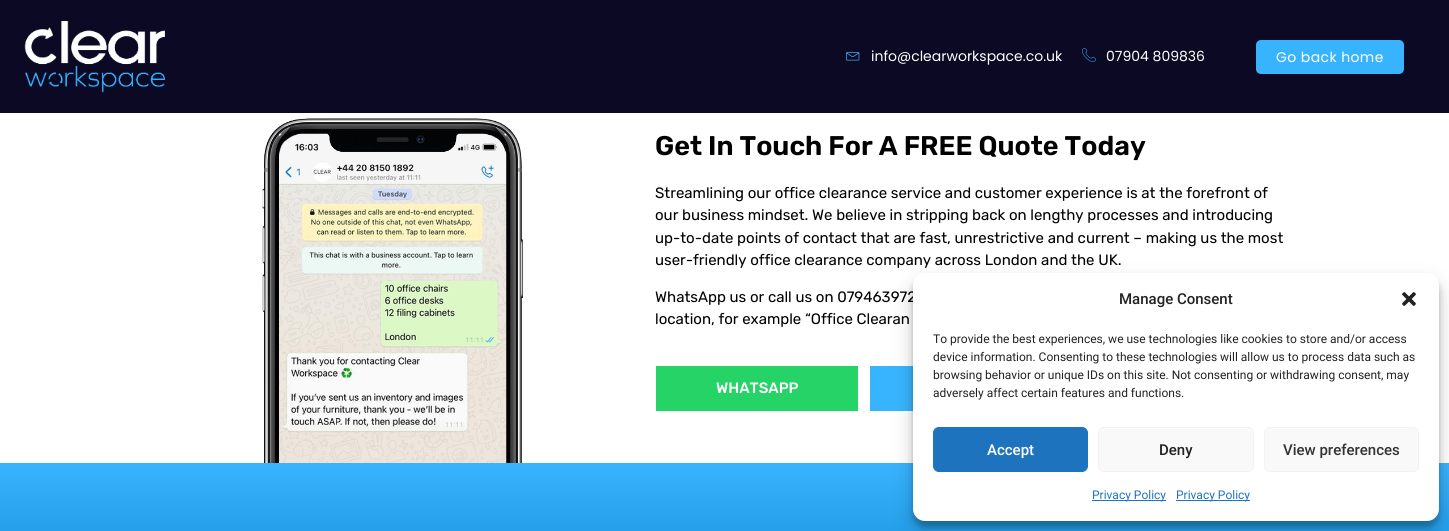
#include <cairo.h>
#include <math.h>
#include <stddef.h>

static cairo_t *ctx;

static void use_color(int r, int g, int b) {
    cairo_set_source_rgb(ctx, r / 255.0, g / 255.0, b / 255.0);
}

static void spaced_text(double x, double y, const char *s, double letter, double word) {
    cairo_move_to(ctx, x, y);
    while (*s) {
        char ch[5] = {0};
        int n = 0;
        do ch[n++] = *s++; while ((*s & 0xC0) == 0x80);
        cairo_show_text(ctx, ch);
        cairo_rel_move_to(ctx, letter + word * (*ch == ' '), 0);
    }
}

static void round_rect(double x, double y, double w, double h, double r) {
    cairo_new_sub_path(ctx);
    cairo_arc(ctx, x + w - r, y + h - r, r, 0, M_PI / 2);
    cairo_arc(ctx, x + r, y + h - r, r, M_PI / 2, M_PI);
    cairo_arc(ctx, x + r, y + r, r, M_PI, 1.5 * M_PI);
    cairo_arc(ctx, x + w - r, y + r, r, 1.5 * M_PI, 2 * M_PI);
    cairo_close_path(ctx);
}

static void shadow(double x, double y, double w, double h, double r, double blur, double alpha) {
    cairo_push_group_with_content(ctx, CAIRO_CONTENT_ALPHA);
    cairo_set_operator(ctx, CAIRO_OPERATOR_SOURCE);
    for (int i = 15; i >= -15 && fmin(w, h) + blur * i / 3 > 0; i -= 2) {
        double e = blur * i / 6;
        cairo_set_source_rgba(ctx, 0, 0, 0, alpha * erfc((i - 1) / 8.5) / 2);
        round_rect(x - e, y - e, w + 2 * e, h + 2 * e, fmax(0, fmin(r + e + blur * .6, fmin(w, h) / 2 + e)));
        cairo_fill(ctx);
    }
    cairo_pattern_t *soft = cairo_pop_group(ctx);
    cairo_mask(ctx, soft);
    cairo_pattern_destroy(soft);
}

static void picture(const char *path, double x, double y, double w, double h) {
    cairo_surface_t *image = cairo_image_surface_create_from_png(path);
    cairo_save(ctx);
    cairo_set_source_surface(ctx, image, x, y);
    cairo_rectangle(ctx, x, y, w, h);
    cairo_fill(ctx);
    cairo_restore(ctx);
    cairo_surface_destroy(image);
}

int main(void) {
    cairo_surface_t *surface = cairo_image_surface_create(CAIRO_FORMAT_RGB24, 1449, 531);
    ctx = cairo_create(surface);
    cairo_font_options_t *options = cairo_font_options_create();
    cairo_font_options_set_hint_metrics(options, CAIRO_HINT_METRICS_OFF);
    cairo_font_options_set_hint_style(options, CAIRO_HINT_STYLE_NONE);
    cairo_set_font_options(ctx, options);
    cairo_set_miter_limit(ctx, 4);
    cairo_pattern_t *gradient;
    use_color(255, 255, 255);
    cairo_paint(ctx);
    use_color(12, 9, 36);
    cairo_rectangle(ctx, 0, 0, 1449, 113);
    cairo_fill(ctx);
    picture("img1.png", 24, 21, 141, 72);
    picture("img2.png", 846, 52, 14, 9);
    cairo_select_font_face(ctx, "Poppins", CAIRO_FONT_SLANT_NORMAL, CAIRO_FONT_WEIGHT_NORMAL);
    cairo_set_font_size(ctx, 14);
    use_color(255, 255, 255);
    cairo_move_to(ctx, 871, 61);
    cairo_show_text(ctx, "info@clearworkspace.co.uk");
    picture("img3.png", 1082, 48, 14, 15);
    cairo_move_to(ctx, 1106, 61);
    cairo_show_text(ctx, "07904 809836");
    use_color(56, 180, 254);
    round_rect(1256, 40, 148, 34, 5);
    cairo_fill(ctx);
    use_color(255, 255, 255);
    spaced_text(1276, 62, "Go back home", 0.4, 0);
    picture("img4.png", 262, 118, 262, 345);
    cairo_select_font_face(ctx, "Rubik SemiBold", CAIRO_FONT_SLANT_NORMAL, CAIRO_FONT_WEIGHT_NORMAL);
    cairo_set_font_size(ctx, 27);
    use_color(0, 0, 0);
    cairo_move_to(ctx, 655, 155);
    cairo_show_text(ctx, "Get In Touch For A FREE Quote Today");
    cairo_select_font_face(ctx, "Rubik", CAIRO_FONT_SLANT_NORMAL, CAIRO_FONT_WEIGHT_NORMAL);
    cairo_set_font_size(ctx, 15);
    cairo_move_to(ctx, 655, 198);
    cairo_show_text(ctx, "Streamlining our office clearance service and customer experience is at the forefront of");
    cairo_move_to(ctx, 655, 220);
    cairo_show_text(ctx, "our business mindset. We believe in stripping back on lengthy processes and introducing");
    cairo_move_to(ctx, 655, 243);
    cairo_show_text(ctx, "up-to-date points of contact that are fast, unrestrictive and current – making us the most");
    cairo_move_to(ctx, 655, 265);
    cairo_show_text(ctx, "user-friendly office clearance company across London and the UK.");
    cairo_move_to(ctx, 655, 302);
    cairo_show_text(ctx, "WhatsApp us or call us on 079463972");
    cairo_move_to(ctx, 655, 324);
    cairo_show_text(ctx, "location, for example “Office Clearan");
    use_color(38, 211, 103);
    cairo_rectangle(ctx, 656, 366, 202, 45);
    cairo_fill(ctx);
    cairo_select_font_face(ctx, "Rubik Medium", CAIRO_FONT_SLANT_NORMAL, CAIRO_FONT_WEIGHT_NORMAL);
    use_color(255, 255, 255);
    cairo_move_to(ctx, 716, 393);
    cairo_show_text(ctx, "WHATSAPP");
    use_color(56, 180, 254);
    cairo_rectangle(ctx, 870, 366, 43, 45);
    cairo_fill(ctx);
    gradient = cairo_pattern_create_linear(725, 463, 725, 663);
    cairo_pattern_add_color_stop_rgba(gradient, 0, 0.22, 0.702, 0.996, 1);
    cairo_pattern_add_color_stop_rgba(gradient, 1, 0, 0.475, 0.769, 1);
    cairo_set_source(ctx, gradient);
    cairo_pattern_destroy(gradient);
    cairo_rectangle(ctx, 0, 463, 1449, 68);
    cairo_fill(ctx);
    use_color(0, 0, 0);
    shadow(913, 279, 526, 248, 12, 3, 0.23);
    shadow(913, 283, 526, 248, 12, 10, 0.19);
    use_color(255, 255, 255);
    round_rect(913, 273, 526, 248, 12);
    cairo_fill(ctx);
    cairo_select_font_face(ctx, "Roboto Medium", CAIRO_FONT_SLANT_NORMAL, CAIRO_FONT_WEIGHT_NORMAL);
    use_color(34, 34, 34);
    cairo_move_to(ctx, 1119, 304);
    cairo_show_text(ctx, "Manage Consent");
    picture("img5.png", 1402, 292, 14, 14);
    cairo_select_font_face(ctx, "Roboto", CAIRO_FONT_SLANT_NORMAL, CAIRO_FONT_WEIGHT_NORMAL);
    cairo_set_font_size(ctx, 12);
    cairo_move_to(ctx, 933, 343);
    cairo_show_text(ctx, "To provide the best experiences, we use technologies like cookies to store and/or access");
    cairo_move_to(ctx, 933, 361);
    cairo_show_text(ctx, "device information. Consenting to these technologies will allow us to process data such as");
    cairo_move_to(ctx, 933, 379);
    cairo_show_text(ctx, "browsing behavior or unique IDs on this site. Not consenting or withdrawing consent, may");
    cairo_move_to(ctx, 933, 397);
    cairo_show_text(ctx, "adversely affect certain features and functions.");
    use_color(30, 115, 190);
    round_rect(933.5, 427.5, 154, 44, 5.5);
    cairo_fill_preserve(ctx);
    cairo_set_line_width(ctx, 1);
    cairo_stroke(ctx);
    cairo_select_font_face(ctx, "Roboto Medium", CAIRO_FONT_SLANT_NORMAL, CAIRO_FONT_WEIGHT_NORMAL);
    cairo_set_font_size(ctx, 15);
    use_color(255, 255, 255);
    cairo_move_to(ctx, 987, 455);
    cairo_show_text(ctx, "Accept");
    use_color(249, 249, 249);
    round_rect(1098.5, 427.5, 155, 44, 5.5);
    cairo_fill_preserve(ctx);
    use_color(242, 242, 242);
    cairo_stroke(ctx);
    use_color(34, 34, 34);
    cairo_move_to(ctx, 1159, 455);
    cairo_show_text(ctx, "Deny");
    use_color(249, 249, 249);
    round_rect(1264.5, 427.5, 154, 44, 5.5);
    cairo_fill_preserve(ctx);
    use_color(242, 242, 242);
    cairo_stroke(ctx);
    use_color(51, 51, 51);
    cairo_move_to(ctx, 1283, 455);
    cairo_show_text(ctx, "View preferences");
    use_color(30, 115, 190);
    cairo_rectangle(ctx, 1092, 500, 74, 1);
    cairo_fill(ctx);
    cairo_select_font_face(ctx, "Roboto", CAIRO_FONT_SLANT_NORMAL, CAIRO_FONT_WEIGHT_NORMAL);
    cairo_set_font_size(ctx, 12);
    cairo_move_to(ctx, 1092, 499);
    cairo_show_text(ctx, "Privacy Policy");
    cairo_rectangle(ctx, 1176, 500, 74, 1);
    cairo_fill(ctx);
    cairo_move_to(ctx, 1176, 499);
    cairo_show_text(ctx, "Privacy Policy");
    cairo_surface_write_to_png(surface, "result.png");
    cairo_font_options_destroy(options);
    cairo_destroy(ctx);
    cairo_surface_destroy(surface);
    return 0;
}
